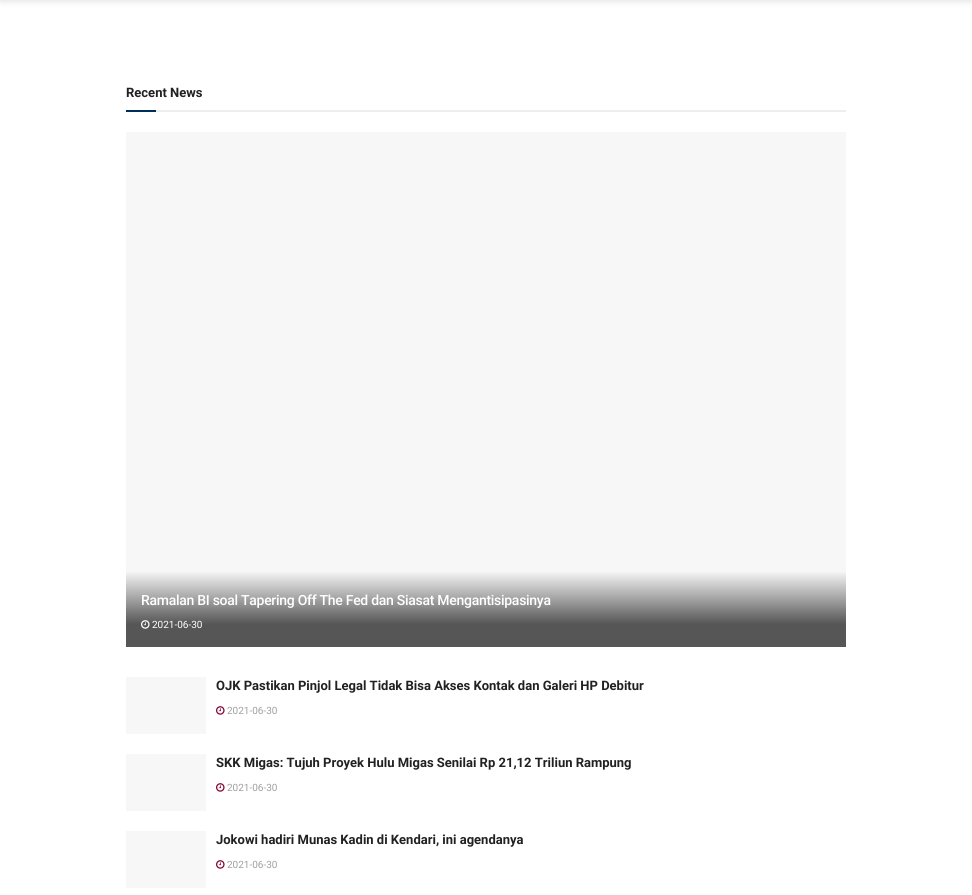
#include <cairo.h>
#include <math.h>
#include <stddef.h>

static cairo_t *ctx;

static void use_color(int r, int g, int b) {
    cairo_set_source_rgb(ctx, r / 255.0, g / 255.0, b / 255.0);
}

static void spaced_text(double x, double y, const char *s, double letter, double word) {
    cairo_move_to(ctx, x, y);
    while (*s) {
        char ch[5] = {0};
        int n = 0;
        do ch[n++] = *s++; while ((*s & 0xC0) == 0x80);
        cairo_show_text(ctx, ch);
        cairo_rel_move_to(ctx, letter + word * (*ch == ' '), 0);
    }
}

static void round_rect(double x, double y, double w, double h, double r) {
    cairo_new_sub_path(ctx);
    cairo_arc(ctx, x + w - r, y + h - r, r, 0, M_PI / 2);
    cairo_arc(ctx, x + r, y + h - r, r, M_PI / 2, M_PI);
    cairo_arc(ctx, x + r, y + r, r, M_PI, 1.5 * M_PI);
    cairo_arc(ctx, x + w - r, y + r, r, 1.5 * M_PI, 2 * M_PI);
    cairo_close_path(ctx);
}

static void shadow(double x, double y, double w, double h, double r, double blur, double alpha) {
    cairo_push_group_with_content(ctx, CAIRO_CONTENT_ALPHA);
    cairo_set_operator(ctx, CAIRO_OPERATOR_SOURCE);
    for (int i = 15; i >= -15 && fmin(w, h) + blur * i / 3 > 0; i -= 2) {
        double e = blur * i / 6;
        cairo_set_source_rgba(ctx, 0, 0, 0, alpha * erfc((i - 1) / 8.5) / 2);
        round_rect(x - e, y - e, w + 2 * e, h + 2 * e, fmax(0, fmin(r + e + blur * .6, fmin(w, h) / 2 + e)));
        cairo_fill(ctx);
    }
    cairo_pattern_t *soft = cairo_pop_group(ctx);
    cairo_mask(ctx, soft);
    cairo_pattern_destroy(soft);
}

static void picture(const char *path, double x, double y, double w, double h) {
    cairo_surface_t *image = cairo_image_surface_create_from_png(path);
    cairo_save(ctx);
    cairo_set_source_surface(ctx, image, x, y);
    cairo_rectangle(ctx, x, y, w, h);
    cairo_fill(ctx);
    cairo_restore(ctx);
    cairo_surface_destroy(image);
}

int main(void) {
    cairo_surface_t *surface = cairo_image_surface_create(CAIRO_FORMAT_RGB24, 972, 895);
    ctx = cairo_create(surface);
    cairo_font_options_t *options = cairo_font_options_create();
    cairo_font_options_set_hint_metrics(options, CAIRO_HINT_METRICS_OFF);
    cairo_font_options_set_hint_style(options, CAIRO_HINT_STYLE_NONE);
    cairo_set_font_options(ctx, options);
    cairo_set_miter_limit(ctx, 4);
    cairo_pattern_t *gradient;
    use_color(255, 255, 255);
    cairo_paint(ctx);
    use_color(0, 0, 0);
    shadow(0, -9, 972, 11, 0, 3, 0.1);
    use_color(238, 238, 238);
    cairo_rectangle(ctx, 156, 110, 690, 2);
    cairo_fill(ctx);
    cairo_select_font_face(ctx, "Roboto", CAIRO_FONT_SLANT_NORMAL, CAIRO_FONT_WEIGHT_BOLD);
    cairo_set_font_size(ctx, 13);
    use_color(33, 33, 33);
    cairo_move_to(ctx, 126, 97);
    cairo_show_text(ctx, "Recent News");
    use_color(0, 46, 91);
    cairo_rectangle(ctx, 126, 110, 30, 2);
    cairo_fill(ctx);
    use_color(247, 247, 247);
    cairo_rectangle(ctx, 126, 132, 720, 439);
    cairo_fill(ctx);
    gradient = cairo_pattern_create_linear(486, 571, 486, 647);
    cairo_pattern_add_color_stop_rgba(gradient, 0, 0.969, 0.969, 0.969, 1);
    cairo_pattern_add_color_stop_rgba(gradient, 0.7, 0.337, 0.337, 0.337, 1);
    cairo_set_source(ctx, gradient);
    cairo_pattern_destroy(gradient);
    cairo_rectangle(ctx, 126, 571, 720, 76);
    cairo_fill(ctx);
    cairo_select_font_face(ctx, "Roboto Medium", CAIRO_FONT_SLANT_NORMAL, CAIRO_FONT_WEIGHT_NORMAL);
    cairo_set_font_size(ctx, 14);
    use_color(255, 255, 255);
    spaced_text(141, 605, "Ramalan BI soal Tapering Off The Fed dan Siasat Mengantisipasinya", -0.28, 0);
    picture("img1.png", 141, 620, 9, 9);
    cairo_select_font_face(ctx, "Roboto", CAIRO_FONT_SLANT_NORMAL, CAIRO_FONT_WEIGHT_NORMAL);
    cairo_set_font_size(ctx, 10);
    cairo_move_to(ctx, 152, 628);
    cairo_show_text(ctx, "2021-06-30");
    use_color(247, 247, 247);
    cairo_rectangle(ctx, 126, 677, 80, 57);
    cairo_fill(ctx);
    cairo_select_font_face(ctx, "Roboto", CAIRO_FONT_SLANT_NORMAL, CAIRO_FONT_WEIGHT_BOLD);
    cairo_set_font_size(ctx, 13);
    use_color(33, 33, 33);
    cairo_move_to(ctx, 216, 690);
    cairo_show_text(ctx, "OJK Pastikan Pinjol Legal Tidak Bisa Akses Kontak dan Galeri HP Debitur");
    picture("img2.png", 216, 706, 9, 9);
    cairo_select_font_face(ctx, "Roboto", CAIRO_FONT_SLANT_NORMAL, CAIRO_FONT_WEIGHT_NORMAL);
    cairo_set_font_size(ctx, 10);
    use_color(160, 160, 160);
    cairo_move_to(ctx, 227, 714);
    cairo_show_text(ctx, "2021-06-30");
    use_color(247, 247, 247);
    cairo_rectangle(ctx, 126, 754, 80, 57);
    cairo_fill(ctx);
    cairo_select_font_face(ctx, "Roboto", CAIRO_FONT_SLANT_NORMAL, CAIRO_FONT_WEIGHT_BOLD);
    cairo_set_font_size(ctx, 13);
    use_color(33, 33, 33);
    cairo_move_to(ctx, 216, 767);
    cairo_show_text(ctx, "SKK Migas: Tujuh Proyek Hulu Migas Senilai Rp 21,12 Triliun Rampung");
    picture("img2.png", 216, 783, 9, 9);
    cairo_select_font_face(ctx, "Roboto", CAIRO_FONT_SLANT_NORMAL, CAIRO_FONT_WEIGHT_NORMAL);
    cairo_set_font_size(ctx, 10);
    use_color(160, 160, 160);
    cairo_move_to(ctx, 227, 791);
    cairo_show_text(ctx, "2021-06-30");
    use_color(247, 247, 247);
    cairo_rectangle(ctx, 126, 831, 80, 57);
    cairo_fill(ctx);
    cairo_select_font_face(ctx, "Roboto", CAIRO_FONT_SLANT_NORMAL, CAIRO_FONT_WEIGHT_BOLD);
    cairo_set_font_size(ctx, 13);
    use_color(33, 33, 33);
    cairo_move_to(ctx, 216, 844);
    cairo_show_text(ctx, "Jokowi hadiri Munas Kadin di Kendari, ini agendanya");
    picture("img2.png", 216, 860, 9, 9);
    cairo_select_font_face(ctx, "Roboto", CAIRO_FONT_SLANT_NORMAL, CAIRO_FONT_WEIGHT_NORMAL);
    cairo_set_font_size(ctx, 10);
    use_color(160, 160, 160);
    cairo_move_to(ctx, 227, 868);
    cairo_show_text(ctx, "2021-06-30");
    cairo_surface_write_to_png(surface, "result.png");
    cairo_font_options_destroy(options);
    cairo_destroy(ctx);
    cairo_surface_destroy(surface);
    return 0;
}
